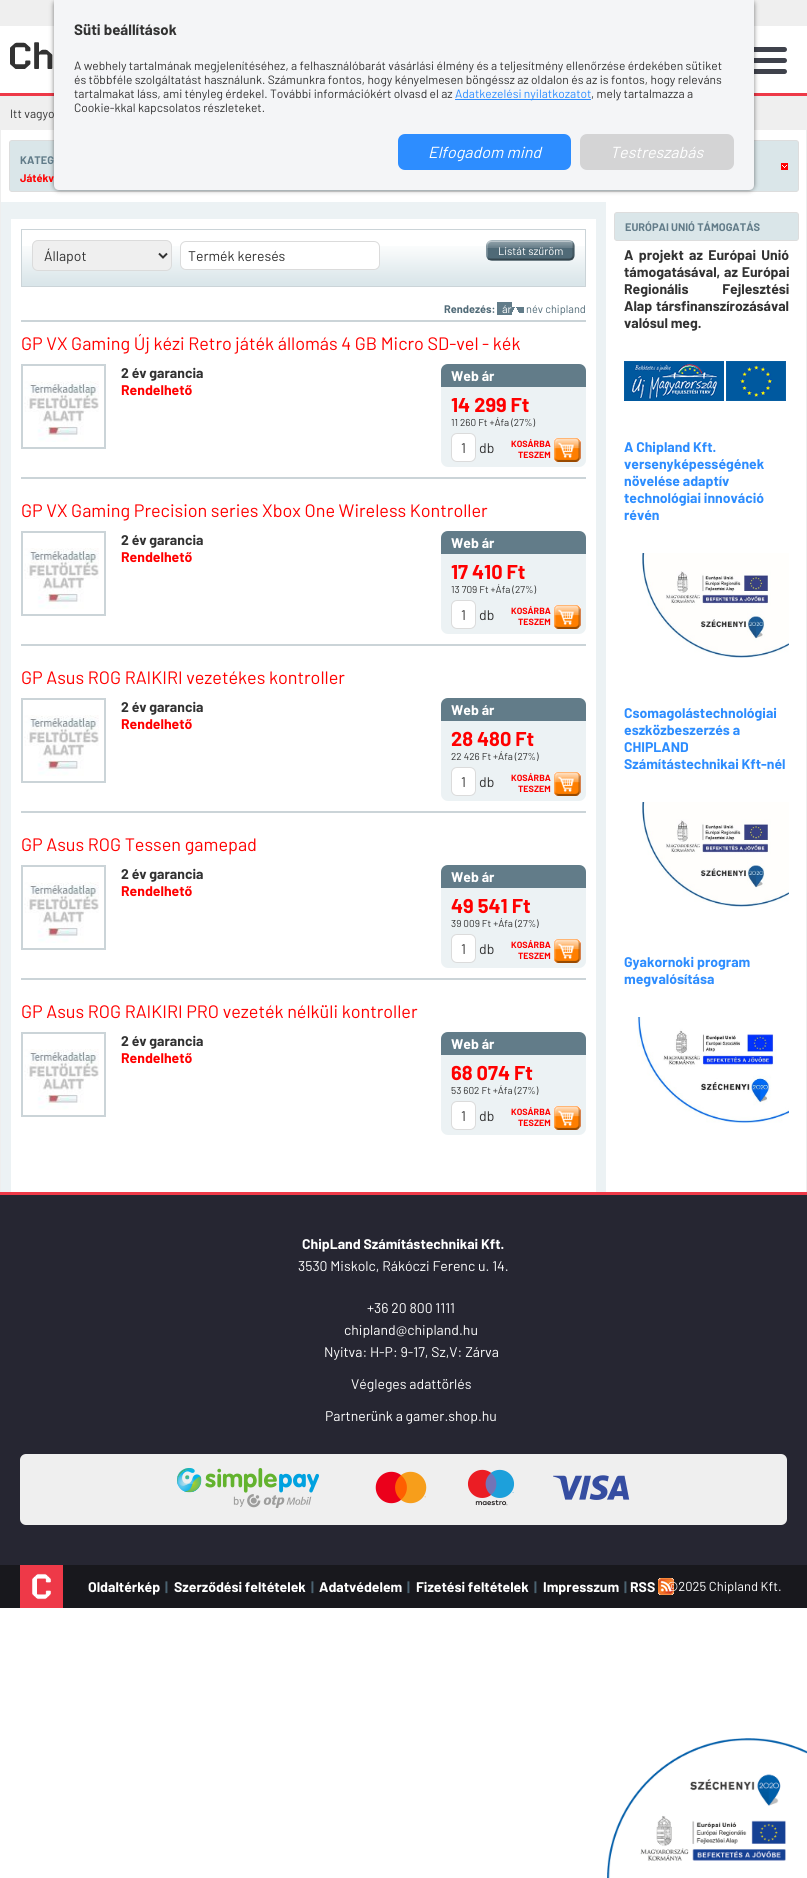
#include <cairo.h>
#include <math.h>
#include <stddef.h>

static cairo_t *ctx;

static void use_color(int r, int g, int b) {
    cairo_set_source_rgb(ctx, r / 255.0, g / 255.0, b / 255.0);
}

static void spaced_text(double x, double y, const char *s, double letter, double word) {
    cairo_move_to(ctx, x, y);
    while (*s) {
        char ch[5] = {0};
        int n = 0;
        do ch[n++] = *s++; while ((*s & 0xC0) == 0x80);
        cairo_show_text(ctx, ch);
        cairo_rel_move_to(ctx, letter + word * (*ch == ' '), 0);
    }
}

static void round_rect(double x, double y, double w, double h, double r) {
    cairo_new_sub_path(ctx);
    cairo_arc(ctx, x + w - r, y + h - r, r, 0, M_PI / 2);
    cairo_arc(ctx, x + r, y + h - r, r, M_PI / 2, M_PI);
    cairo_arc(ctx, x + r, y + r, r, M_PI, 1.5 * M_PI);
    cairo_arc(ctx, x + w - r, y + r, r, 1.5 * M_PI, 2 * M_PI);
    cairo_close_path(ctx);
}

static void shadow(double x, double y, double w, double h, double r, double blur, double alpha) {
    cairo_push_group_with_content(ctx, CAIRO_CONTENT_ALPHA);
    cairo_set_operator(ctx, CAIRO_OPERATOR_SOURCE);
    for (int i = 15; i >= -15 && fmin(w, h) + blur * i / 3 > 0; i -= 2) {
        double e = blur * i / 6;
        cairo_set_source_rgba(ctx, 0, 0, 0, alpha * erfc((i - 1) / 8.5) / 2);
        round_rect(x - e, y - e, w + 2 * e, h + 2 * e, fmax(0, fmin(r + e + blur * .6, fmin(w, h) / 2 + e)));
        cairo_fill(ctx);
    }
    cairo_pattern_t *soft = cairo_pop_group(ctx);
    cairo_mask(ctx, soft);
    cairo_pattern_destroy(soft);
}

static void picture(const char *path, double x, double y, double w, double h) {
    cairo_surface_t *image = cairo_image_surface_create_from_png(path);
    cairo_save(ctx);
    cairo_set_source_surface(ctx, image, x, y);
    cairo_rectangle(ctx, x, y, w, h);
    cairo_fill(ctx);
    cairo_restore(ctx);
    cairo_surface_destroy(image);
}

int main(void) {
    cairo_surface_t *surface = cairo_image_surface_create(CAIRO_FORMAT_RGB24, 807, 1878);
    ctx = cairo_create(surface);
    cairo_font_options_t *options = cairo_font_options_create();
    cairo_font_options_set_hint_metrics(options, CAIRO_HINT_METRICS_OFF);
    cairo_font_options_set_hint_style(options, CAIRO_HINT_STYLE_NONE);
    cairo_set_font_options(ctx, options);
    cairo_set_miter_limit(ctx, 4);
    use_color(255, 255, 255);
    cairo_paint(ctx);
    use_color(239, 239, 239);
    cairo_rectangle(ctx, 0, 0, 807, 26);
    cairo_fill(ctx);
    cairo_rectangle(ctx, 0, 96, 807, 34);
    cairo_fill(ctx);
    use_color(238, 57, 72);
    cairo_rectangle(ctx, 0, 93, 807, 3);
    cairo_fill(ctx);
    picture("img1.png", 10, 42, 43, 27);
    use_color(63, 66, 76);
    round_rect(751, 47, 36, 5, 2.5);
    cairo_fill(ctx);
    round_rect(751, 58, 36, 5, 2.5);
    cairo_fill(ctx);
    round_rect(751, 69, 36, 5, 2.5);
    cairo_fill(ctx);
    use_color(218, 230, 233);
    round_rect(9.5, 140.5, 789, 51, 2.5);
    cairo_fill_preserve(ctx);
    use_color(221, 221, 221);
    cairo_set_line_width(ctx, 1);
    cairo_stroke(ctx);
    use_color(0, 0, 0);
    shadow(54, 0, 700, 190, 5, 2.5, 0.5);
    use_color(244, 245, 247);
    cairo_new_path(ctx);
    cairo_move_to(ctx, 54, 0);
    cairo_line_to(ctx, 754, 0);
    cairo_line_to(ctx, 754, 185);
    cairo_curve_to(ctx, 754, 188, 752, 190, 749, 190);
    cairo_line_to(ctx, 59, 190);
    cairo_curve_to(ctx, 56, 190, 54, 188, 54, 185);
    cairo_close_path(ctx);
    cairo_fill(ctx);
    cairo_select_font_face(ctx, "Barlow", CAIRO_FONT_SLANT_NORMAL, CAIRO_FONT_WEIGHT_BOLD);
    cairo_set_font_size(ctx, 15);
    use_color(50, 50, 50);
    cairo_move_to(ctx, 74, 35);
    cairo_show_text(ctx, "Süti beállítások");
    cairo_select_font_face(ctx, "Barlow", CAIRO_FONT_SLANT_NORMAL, CAIRO_FONT_WEIGHT_NORMAL);
    cairo_set_font_size(ctx, 12);
    cairo_move_to(ctx, 74, 70);
    cairo_show_text(ctx, "A webhely tartalmának megjelenítéséhez, a felhasználóbarát vásárlási élmény és a teljesítmény ellenőrzése érdekében sütiket");
    cairo_move_to(ctx, 74, 84);
    cairo_show_text(ctx, "és többféle szolgáltatást használunk. Számunkra fontos, hogy kényelmesen böngéssz az oldalon és az is fontos, hogy releváns");
    cairo_move_to(ctx, 74, 98);
    cairo_show_text(ctx, "tartalmakat láss, ami tényleg érdekel. További információkért olvasd el az");
    use_color(45, 141, 255);
    cairo_rectangle(ctx, 455, 99, 136, 1);
    cairo_fill(ctx);
    cairo_move_to(ctx, 455, 98);
    cairo_show_text(ctx, "Adatkezelési nyilatkozatot");
    use_color(50, 50, 50);
    cairo_move_to(ctx, 591, 98);
    cairo_show_text(ctx, ", mely tartalmazza a");
    cairo_move_to(ctx, 74, 112);
    cairo_show_text(ctx, "Cookie-kkal kapcsolatos részleteket.");
    use_color(45, 141, 255);
    round_rect(398, 134, 173, 36, 7);
    cairo_fill(ctx);
    cairo_select_font_face(ctx, "Barlow", CAIRO_FONT_SLANT_ITALIC, CAIRO_FONT_WEIGHT_NORMAL);
    cairo_set_font_size(ctx, 16);
    use_color(255, 255, 255);
    cairo_move_to(ctx, 428, 158);
    cairo_show_text(ctx, "Elfogadom mind");
    use_color(212, 212, 213);
    round_rect(580, 134, 154, 36, 7);
    cairo_fill(ctx);
    use_color(255, 255, 255);
    cairo_move_to(ctx, 610, 158);
    cairo_show_text(ctx, "Testreszabás");
    cairo_select_font_face(ctx, "Barlow", CAIRO_FONT_SLANT_NORMAL, CAIRO_FONT_WEIGHT_NORMAL);
    cairo_set_font_size(ctx, 12);
    use_color(50, 50, 50);
    cairo_move_to(ctx, 10, 118);
    cairo_show_text(ctx, "Itt vagyo");
    use_color(238, 238, 238);
    cairo_rectangle(ctx, 806, 130, 1, 1062);
    cairo_fill(ctx);
    cairo_rectangle(ctx, 0, 130, 1, 1062);
    cairo_fill(ctx);
    cairo_select_font_face(ctx, "Barlow", CAIRO_FONT_SLANT_NORMAL, CAIRO_FONT_WEIGHT_BOLD);
    cairo_set_font_size(ctx, 11);
    use_color(98, 124, 137);
    cairo_move_to(ctx, 20, 164);
    cairo_show_text(ctx, "KATEG");
    picture("img2.png", 781, 163, 7, 7);
    use_color(255, 0, 0);
    cairo_move_to(ctx, 20, 182);
    cairo_show_text(ctx, "Játékv");
    use_color(236, 242, 244);
    cairo_rectangle(ctx, 1, 202, 605, 990);
    cairo_fill(ctx);
    use_color(255, 255, 255);
    cairo_rectangle(ctx, 11, 219, 585, 973);
    cairo_fill(ctx);
    picture("img3.png", 22, 246, 563, 40);
    cairo_rectangle(ctx, 21.5, 229.5, 564, 57);
    use_color(203, 212, 216);
    cairo_stroke(ctx);
    use_color(239, 239, 239);
    round_rect(32.5, 240.5, 139, 30, 5.5);
    cairo_fill_preserve(ctx);
    use_color(219, 219, 219);
    cairo_stroke(ctx);
    cairo_new_path(ctx);
    cairo_move_to(ctx, 159, 253.5);
    cairo_line_to(ctx, 163, 257.5);
    cairo_line_to(ctx, 167, 253.5);
    use_color(50, 50, 50);
    cairo_set_line_width(ctx, 2);
    cairo_stroke(ctx);
    cairo_select_font_face(ctx, "Barlow", CAIRO_FONT_SLANT_NORMAL, CAIRO_FONT_WEIGHT_NORMAL);
    cairo_set_font_size(ctx, 14);
    cairo_move_to(ctx, 44, 261);
    cairo_show_text(ctx, "Állapot");
    use_color(255, 255, 255);
    round_rect(180.5, 241.5, 199, 28, 5.5);
    cairo_fill_preserve(ctx);
    use_color(219, 219, 219);
    cairo_set_line_width(ctx, 1);
    cairo_stroke(ctx);
    use_color(50, 50, 50);
    cairo_move_to(ctx, 188, 261);
    cairo_show_text(ctx, "Termék keresés");
    picture("img4.png", 486, 240, 89, 21);
    cairo_set_font_size(ctx, 11);
    use_color(255, 255, 255);
    cairo_move_to(ctx, 498, 255);
    cairo_show_text(ctx, "Listát szűröm");
    use_color(203, 212, 216);
    cairo_rectangle(ctx, 21, 320, 565, 2);
    cairo_fill(ctx);
    cairo_select_font_face(ctx, "Barlow", CAIRO_FONT_SLANT_NORMAL, CAIRO_FONT_WEIGHT_BOLD);
    use_color(80, 106, 119);
    cairo_move_to(ctx, 444, 313);
    cairo_show_text(ctx, "Rendezés:");
    use_color(98, 124, 137);
    cairo_rectangle(ctx, 497, 302, 15, 13);
    cairo_fill(ctx);
    cairo_select_font_face(ctx, "Barlow", CAIRO_FONT_SLANT_NORMAL, CAIRO_FONT_WEIGHT_NORMAL);
    use_color(255, 255, 255);
    cairo_move_to(ctx, 502, 313);
    cairo_show_text(ctx, "ár");
    use_color(98, 124, 137);
    cairo_rectangle(ctx, 512, 307, 12, 6);
    cairo_fill(ctx);
    picture("img5.png", 512, 307, 7, 6);
    use_color(80, 106, 119);
    cairo_move_to(ctx, 526, 313);
    cairo_show_text(ctx, "név chipland");
    use_color(203, 212, 216);
    cairo_rectangle(ctx, 21, 477, 565, 2);
    cairo_fill(ctx);
    cairo_set_font_size(ctx, 18);
    use_color(255, 0, 0);
    cairo_move_to(ctx, 21, 350);
    cairo_show_text(ctx, "GP VX Gaming Új kézi Retro játék állomás 4 GB Micro SD-vel - kék");
    cairo_rectangle(ctx, 22, 365, 83, 83);
    use_color(203, 212, 216);
    cairo_set_line_width(ctx, 2);
    cairo_stroke(ctx);
    picture("img6.png", 24, 381, 75, 61);
    cairo_select_font_face(ctx, "Barlow", CAIRO_FONT_SLANT_NORMAL, CAIRO_FONT_WEIGHT_BOLD);
    cairo_set_font_size(ctx, 14);
    use_color(50, 50, 50);
    cairo_move_to(ctx, 121, 378);
    cairo_show_text(ctx, "2 év garancia");
    use_color(255, 0, 0);
    cairo_move_to(ctx, 121, 395);
    cairo_show_text(ctx, "Rendelhető");
    use_color(236, 242, 244);
    round_rect(441, 364, 145, 103, 7);
    cairo_fill(ctx);
    use_color(98, 124, 137);
    cairo_new_path(ctx);
    cairo_move_to(ctx, 448, 364);
    cairo_line_to(ctx, 579, 364);
    cairo_curve_to(ctx, 583, 364, 586, 367, 586, 371);
    cairo_line_to(ctx, 586, 387);
    cairo_line_to(ctx, 441, 387);
    cairo_line_to(ctx, 441, 371);
    cairo_curve_to(ctx, 441, 367, 444, 364, 448, 364);
    cairo_close_path(ctx);
    cairo_fill(ctx);
    use_color(255, 255, 255);
    cairo_move_to(ctx, 451, 381);
    cairo_show_text(ctx, "Web ár");
    cairo_set_font_size(ctx, 20);
    use_color(255, 0, 0);
    cairo_move_to(ctx, 451, 412);
    cairo_show_text(ctx, "14 299 Ft");
    cairo_select_font_face(ctx, "Barlow", CAIRO_FONT_SLANT_NORMAL, CAIRO_FONT_WEIGHT_NORMAL);
    cairo_set_font_size(ctx, 10);
    use_color(50, 50, 50);
    cairo_move_to(ctx, 451, 426);
    cairo_show_text(ctx, "11 260 Ft +Áfa (27%)");
    use_color(255, 255, 255);
    round_rect(451.5, 433.5, 24, 28, 5.5);
    cairo_fill_preserve(ctx);
    use_color(219, 219, 219);
    cairo_set_line_width(ctx, 1);
    cairo_stroke(ctx);
    cairo_set_font_size(ctx, 14);
    use_color(50, 50, 50);
    cairo_move_to(ctx, 461, 453);
    cairo_show_text(ctx, "1");
    cairo_move_to(ctx, 479, 453);
    cairo_show_text(ctx, "db");
    picture("img7.png", 554, 438, 27, 24);
    cairo_select_font_face(ctx, "Barlow", CAIRO_FONT_SLANT_NORMAL, CAIRO_FONT_WEIGHT_BOLD);
    cairo_set_font_size(ctx, 9);
    use_color(255, 0, 0);
    cairo_move_to(ctx, 511, 447);
    cairo_show_text(ctx, "KOSÁRBA");
    cairo_move_to(ctx, 518, 458);
    cairo_show_text(ctx, "TESZEM");
    use_color(203, 212, 216);
    cairo_rectangle(ctx, 21, 644, 565, 2);
    cairo_fill(ctx);
    cairo_select_font_face(ctx, "Barlow", CAIRO_FONT_SLANT_NORMAL, CAIRO_FONT_WEIGHT_NORMAL);
    cairo_set_font_size(ctx, 18);
    use_color(255, 0, 0);
    cairo_move_to(ctx, 21, 517);
    cairo_show_text(ctx, "GP VX Gaming Precision series Xbox One Wireless Kontroller");
    cairo_rectangle(ctx, 22, 532, 83, 83);
    use_color(203, 212, 216);
    cairo_set_line_width(ctx, 2);
    cairo_stroke(ctx);
    picture("img8.png", 24, 548, 75, 61);
    cairo_select_font_face(ctx, "Barlow", CAIRO_FONT_SLANT_NORMAL, CAIRO_FONT_WEIGHT_BOLD);
    cairo_set_font_size(ctx, 14);
    use_color(50, 50, 50);
    cairo_move_to(ctx, 121, 545);
    cairo_show_text(ctx, "2 év garancia");
    use_color(255, 0, 0);
    cairo_move_to(ctx, 121, 562);
    cairo_show_text(ctx, "Rendelhető");
    use_color(236, 242, 244);
    round_rect(441, 531, 145, 103, 7);
    cairo_fill(ctx);
    use_color(98, 124, 137);
    cairo_new_path(ctx);
    cairo_move_to(ctx, 448, 531);
    cairo_line_to(ctx, 579, 531);
    cairo_curve_to(ctx, 583, 531, 586, 534, 586, 538);
    cairo_line_to(ctx, 586, 554);
    cairo_line_to(ctx, 441, 554);
    cairo_line_to(ctx, 441, 538);
    cairo_curve_to(ctx, 441, 534, 444, 531, 448, 531);
    cairo_close_path(ctx);
    cairo_fill(ctx);
    use_color(255, 255, 255);
    cairo_move_to(ctx, 451, 548);
    cairo_show_text(ctx, "Web ár");
    cairo_set_font_size(ctx, 20);
    use_color(255, 0, 0);
    cairo_move_to(ctx, 451, 579);
    cairo_show_text(ctx, "17 410 Ft");
    cairo_select_font_face(ctx, "Barlow", CAIRO_FONT_SLANT_NORMAL, CAIRO_FONT_WEIGHT_NORMAL);
    cairo_set_font_size(ctx, 10);
    use_color(50, 50, 50);
    cairo_move_to(ctx, 451, 593);
    cairo_show_text(ctx, "13 709 Ft +Áfa (27%)");
    use_color(255, 255, 255);
    round_rect(451.5, 600.5, 24, 28, 5.5);
    cairo_fill_preserve(ctx);
    use_color(219, 219, 219);
    cairo_set_line_width(ctx, 1);
    cairo_stroke(ctx);
    cairo_set_font_size(ctx, 14);
    use_color(50, 50, 50);
    cairo_move_to(ctx, 461, 620);
    cairo_show_text(ctx, "1");
    cairo_move_to(ctx, 479, 620);
    cairo_show_text(ctx, "db");
    picture("img7.png", 554, 605, 27, 24);
    cairo_select_font_face(ctx, "Barlow", CAIRO_FONT_SLANT_NORMAL, CAIRO_FONT_WEIGHT_BOLD);
    cairo_set_font_size(ctx, 9);
    use_color(255, 0, 0);
    cairo_move_to(ctx, 511, 614);
    cairo_show_text(ctx, "KOSÁRBA");
    cairo_move_to(ctx, 518, 625);
    cairo_show_text(ctx, "TESZEM");
    use_color(203, 212, 216);
    cairo_rectangle(ctx, 21, 811, 565, 2);
    cairo_fill(ctx);
    cairo_select_font_face(ctx, "Barlow", CAIRO_FONT_SLANT_NORMAL, CAIRO_FONT_WEIGHT_NORMAL);
    cairo_set_font_size(ctx, 18);
    use_color(255, 0, 0);
    cairo_move_to(ctx, 21, 684);
    cairo_show_text(ctx, "GP Asus ROG RAIKIRI vezetékes kontroller");
    cairo_rectangle(ctx, 22, 699, 83, 83);
    use_color(203, 212, 216);
    cairo_set_line_width(ctx, 2);
    cairo_stroke(ctx);
    picture("img8.png", 24, 715, 75, 61);
    cairo_select_font_face(ctx, "Barlow", CAIRO_FONT_SLANT_NORMAL, CAIRO_FONT_WEIGHT_BOLD);
    cairo_set_font_size(ctx, 14);
    use_color(50, 50, 50);
    cairo_move_to(ctx, 121, 712);
    cairo_show_text(ctx, "2 év garancia");
    use_color(255, 0, 0);
    cairo_move_to(ctx, 121, 729);
    cairo_show_text(ctx, "Rendelhető");
    use_color(236, 242, 244);
    round_rect(441, 698, 145, 103, 7);
    cairo_fill(ctx);
    use_color(98, 124, 137);
    cairo_new_path(ctx);
    cairo_move_to(ctx, 448, 698);
    cairo_line_to(ctx, 579, 698);
    cairo_curve_to(ctx, 583, 698, 586, 701, 586, 705);
    cairo_line_to(ctx, 586, 721);
    cairo_line_to(ctx, 441, 721);
    cairo_line_to(ctx, 441, 705);
    cairo_curve_to(ctx, 441, 701, 444, 698, 448, 698);
    cairo_close_path(ctx);
    cairo_fill(ctx);
    use_color(255, 255, 255);
    cairo_move_to(ctx, 451, 715);
    cairo_show_text(ctx, "Web ár");
    cairo_set_font_size(ctx, 20);
    use_color(255, 0, 0);
    cairo_move_to(ctx, 451, 746);
    cairo_show_text(ctx, "28 480 Ft");
    cairo_select_font_face(ctx, "Barlow", CAIRO_FONT_SLANT_NORMAL, CAIRO_FONT_WEIGHT_NORMAL);
    cairo_set_font_size(ctx, 10);
    use_color(50, 50, 50);
    cairo_move_to(ctx, 451, 760);
    cairo_show_text(ctx, "22 426 Ft +Áfa (27%)");
    use_color(255, 255, 255);
    round_rect(451.5, 767.5, 24, 28, 5.5);
    cairo_fill_preserve(ctx);
    use_color(219, 219, 219);
    cairo_set_line_width(ctx, 1);
    cairo_stroke(ctx);
    cairo_set_font_size(ctx, 14);
    use_color(50, 50, 50);
    cairo_move_to(ctx, 461, 787);
    cairo_show_text(ctx, "1");
    cairo_move_to(ctx, 479, 787);
    cairo_show_text(ctx, "db");
    picture("img7.png", 554, 772, 27, 24);
    cairo_select_font_face(ctx, "Barlow", CAIRO_FONT_SLANT_NORMAL, CAIRO_FONT_WEIGHT_BOLD);
    cairo_set_font_size(ctx, 9);
    use_color(255, 0, 0);
    cairo_move_to(ctx, 511, 781);
    cairo_show_text(ctx, "KOSÁRBA");
    cairo_move_to(ctx, 518, 792);
    cairo_show_text(ctx, "TESZEM");
    use_color(203, 212, 216);
    cairo_rectangle(ctx, 21, 978, 565, 2);
    cairo_fill(ctx);
    cairo_select_font_face(ctx, "Barlow", CAIRO_FONT_SLANT_NORMAL, CAIRO_FONT_WEIGHT_NORMAL);
    cairo_set_font_size(ctx, 18);
    use_color(255, 0, 0);
    cairo_move_to(ctx, 21, 851);
    cairo_show_text(ctx, "GP Asus ROG Tessen gamepad");
    cairo_rectangle(ctx, 22, 866, 83, 83);
    use_color(203, 212, 216);
    cairo_set_line_width(ctx, 2);
    cairo_stroke(ctx);
    picture("img8.png", 24, 882, 75, 61);
    cairo_select_font_face(ctx, "Barlow", CAIRO_FONT_SLANT_NORMAL, CAIRO_FONT_WEIGHT_BOLD);
    cairo_set_font_size(ctx, 14);
    use_color(50, 50, 50);
    cairo_move_to(ctx, 121, 879);
    cairo_show_text(ctx, "2 év garancia");
    use_color(255, 0, 0);
    cairo_move_to(ctx, 121, 896);
    cairo_show_text(ctx, "Rendelhető");
    use_color(236, 242, 244);
    round_rect(441, 865, 145, 103, 7);
    cairo_fill(ctx);
    use_color(98, 124, 137);
    cairo_new_path(ctx);
    cairo_move_to(ctx, 448, 865);
    cairo_line_to(ctx, 579, 865);
    cairo_curve_to(ctx, 583, 865, 586, 868, 586, 872);
    cairo_line_to(ctx, 586, 888);
    cairo_line_to(ctx, 441, 888);
    cairo_line_to(ctx, 441, 872);
    cairo_curve_to(ctx, 441, 868, 444, 865, 448, 865);
    cairo_close_path(ctx);
    cairo_fill(ctx);
    use_color(255, 255, 255);
    cairo_move_to(ctx, 451, 882);
    cairo_show_text(ctx, "Web ár");
    cairo_set_font_size(ctx, 20);
    use_color(255, 0, 0);
    cairo_move_to(ctx, 451, 913);
    cairo_show_text(ctx, "49 541 Ft");
    cairo_select_font_face(ctx, "Barlow", CAIRO_FONT_SLANT_NORMAL, CAIRO_FONT_WEIGHT_NORMAL);
    cairo_set_font_size(ctx, 10);
    use_color(50, 50, 50);
    cairo_move_to(ctx, 451, 927);
    cairo_show_text(ctx, "39 009 Ft +Áfa (27%)");
    use_color(255, 255, 255);
    round_rect(451.5, 934.5, 24, 28, 5.5);
    cairo_fill_preserve(ctx);
    use_color(219, 219, 219);
    cairo_set_line_width(ctx, 1);
    cairo_stroke(ctx);
    cairo_set_font_size(ctx, 14);
    use_color(50, 50, 50);
    cairo_move_to(ctx, 461, 954);
    cairo_show_text(ctx, "1");
    cairo_move_to(ctx, 479, 954);
    cairo_show_text(ctx, "db");
    picture("img7.png", 554, 939, 27, 24);
    cairo_select_font_face(ctx, "Barlow", CAIRO_FONT_SLANT_NORMAL, CAIRO_FONT_WEIGHT_BOLD);
    cairo_set_font_size(ctx, 9);
    use_color(255, 0, 0);
    cairo_move_to(ctx, 511, 948);
    cairo_show_text(ctx, "KOSÁRBA");
    cairo_move_to(ctx, 518, 959);
    cairo_show_text(ctx, "TESZEM");
    cairo_select_font_face(ctx, "Barlow", CAIRO_FONT_SLANT_NORMAL, CAIRO_FONT_WEIGHT_NORMAL);
    cairo_set_font_size(ctx, 18);
    cairo_move_to(ctx, 21, 1018);
    cairo_show_text(ctx, "GP Asus ROG RAIKIRI PRO vezeték nélküli kontroller");
    cairo_rectangle(ctx, 22, 1033, 83, 83);
    use_color(203, 212, 216);
    cairo_set_line_width(ctx, 2);
    cairo_stroke(ctx);
    picture("img6.png", 24, 1049, 75, 61);
    cairo_select_font_face(ctx, "Barlow", CAIRO_FONT_SLANT_NORMAL, CAIRO_FONT_WEIGHT_BOLD);
    cairo_set_font_size(ctx, 14);
    use_color(50, 50, 50);
    cairo_move_to(ctx, 121, 1046);
    cairo_show_text(ctx, "2 év garancia");
    use_color(255, 0, 0);
    cairo_move_to(ctx, 121, 1063);
    cairo_show_text(ctx, "Rendelhető");
    use_color(236, 242, 244);
    round_rect(441, 1032, 145, 103, 7);
    cairo_fill(ctx);
    use_color(98, 124, 137);
    cairo_new_path(ctx);
    cairo_move_to(ctx, 448, 1032);
    cairo_line_to(ctx, 579, 1032);
    cairo_curve_to(ctx, 583, 1032, 586, 1035, 586, 1039);
    cairo_line_to(ctx, 586, 1055);
    cairo_line_to(ctx, 441, 1055);
    cairo_line_to(ctx, 441, 1039);
    cairo_curve_to(ctx, 441, 1035, 444, 1032, 448, 1032);
    cairo_close_path(ctx);
    cairo_fill(ctx);
    use_color(255, 255, 255);
    cairo_move_to(ctx, 451, 1049);
    cairo_show_text(ctx, "Web ár");
    cairo_set_font_size(ctx, 20);
    use_color(255, 0, 0);
    cairo_move_to(ctx, 451, 1080);
    cairo_show_text(ctx, "68 074 Ft");
    cairo_select_font_face(ctx, "Barlow", CAIRO_FONT_SLANT_NORMAL, CAIRO_FONT_WEIGHT_NORMAL);
    cairo_set_font_size(ctx, 10);
    use_color(50, 50, 50);
    cairo_move_to(ctx, 451, 1094);
    cairo_show_text(ctx, "53 602 Ft +Áfa (27%)");
    use_color(255, 255, 255);
    round_rect(451.5, 1101.5, 24, 28, 5.5);
    cairo_fill_preserve(ctx);
    use_color(219, 219, 219);
    cairo_set_line_width(ctx, 1);
    cairo_stroke(ctx);
    cairo_set_font_size(ctx, 14);
    use_color(50, 50, 50);
    cairo_move_to(ctx, 461, 1121);
    cairo_show_text(ctx, "1");
    cairo_move_to(ctx, 479, 1121);
    cairo_show_text(ctx, "db");
    picture("img7.png", 554, 1106, 27, 24);
    cairo_select_font_face(ctx, "Barlow", CAIRO_FONT_SLANT_NORMAL, CAIRO_FONT_WEIGHT_BOLD);
    cairo_set_font_size(ctx, 9);
    use_color(255, 0, 0);
    cairo_move_to(ctx, 511, 1115);
    cairo_show_text(ctx, "KOSÁRBA");
    cairo_move_to(ctx, 518, 1126);
    cairo_show_text(ctx, "TESZEM");
    use_color(218, 230, 233);
    round_rect(614.5, 212.5, 184, 28, 2.5);
    cairo_fill_preserve(ctx);
    use_color(221, 221, 221);
    cairo_stroke(ctx);
    cairo_set_font_size(ctx, 11);
    use_color(98, 124, 137);
    cairo_move_to(ctx, 625, 231);
    cairo_show_text(ctx, "EURÓPAI UNIÓ TÁMOGATÁS");
    cairo_set_font_size(ctx, 14);
    use_color(50, 50, 50);
    spaced_text(624, 260, "A projekt az Európai Unió", 0, 2.5);
    spaced_text(624, 277, "támogatásával, az Európai", 0, 1);
    spaced_text(624, 294, "Regionális Fejlesztési", 0, 31);
    spaced_text(624, 311, "Alap társfinanszírozásával", 0, 1);
    cairo_move_to(ctx, 624, 328);
    cairo_show_text(ctx, "valósul meg.");
    picture("img9.png", 624, 361, 162, 40);
    use_color(45, 141, 255);
    cairo_move_to(ctx, 624, 452);
    cairo_show_text(ctx, "A Chipland Kft.");
    cairo_move_to(ctx, 624, 469);
    cairo_show_text(ctx, "versenyképességének");
    cairo_move_to(ctx, 624, 486);
    cairo_show_text(ctx, "növelése adaptív");
    cairo_move_to(ctx, 624, 503);
    cairo_show_text(ctx, "technológiai innováció");
    cairo_move_to(ctx, 624, 520);
    cairo_show_text(ctx, "révén");
    picture("img10.png", 642, 553, 147, 105);
    cairo_move_to(ctx, 624, 718);
    cairo_show_text(ctx, "Csomagolástechnológiai");
    cairo_move_to(ctx, 624, 735);
    cairo_show_text(ctx, "eszközbeszerzés a");
    cairo_move_to(ctx, 624, 752);
    cairo_show_text(ctx, "CHIPLAND");
    cairo_move_to(ctx, 624, 769);
    cairo_show_text(ctx, "Számítástechnikai Kft-nél");
    picture("img10.png", 642, 802, 147, 105);
    cairo_move_to(ctx, 624, 967);
    cairo_show_text(ctx, "Gyakornoki program");
    cairo_move_to(ctx, 624, 984);
    cairo_show_text(ctx, "megvalósítása");
    picture("img11.png", 637, 1017, 152, 106);
    use_color(38, 38, 50);
    cairo_rectangle(ctx, 0, 1195, 807, 370);
    cairo_fill(ctx);
    use_color(238, 57, 72);
    cairo_rectangle(ctx, 0, 1192, 807, 3);
    cairo_fill(ctx);
    use_color(255, 255, 255);
    cairo_move_to(ctx, 302, 1249);
    cairo_show_text(ctx, "ChipLand Számítástechnikai Kft.");
    cairo_select_font_face(ctx, "Barlow", CAIRO_FONT_SLANT_NORMAL, CAIRO_FONT_WEIGHT_NORMAL);
    cairo_move_to(ctx, 298, 1271);
    cairo_show_text(ctx, "3530 Miskolc, Rákóczi Ferenc u. 14.");
    cairo_move_to(ctx, 367, 1313);
    cairo_show_text(ctx, "+36 20 800 1111");
    cairo_move_to(ctx, 344, 1335);
    cairo_show_text(ctx, "chipland@chipland.hu");
    cairo_move_to(ctx, 324, 1357);
    cairo_show_text(ctx, "Nyitva: H-P: 9-17, Sz,V: Zárva");
    cairo_move_to(ctx, 351, 1389);
    cairo_show_text(ctx, "Végleges adattörlés");
    cairo_move_to(ctx, 325, 1421);
    cairo_show_text(ctx, "Partnerünk a gamer.shop.hu");
    use_color(239, 239, 239);
    round_rect(20, 1454, 767, 71, 6);
    cairo_fill(ctx);
    picture("img12.png", 177, 1468, 453, 40);
    use_color(24, 24, 29);
    cairo_rectangle(ctx, 0, 1565, 807, 43);
    cairo_fill(ctx);
    picture("img13.png", 20, 1565, 43, 43);
    cairo_select_font_face(ctx, "Barlow", CAIRO_FONT_SLANT_NORMAL, CAIRO_FONT_WEIGHT_BOLD);
    use_color(255, 255, 255);
    cairo_move_to(ctx, 88, 1592);
    cairo_show_text(ctx, "Oldaltérkép");
    use_color(74, 98, 112);
    cairo_move_to(ctx, 165, 1592);
    cairo_show_text(ctx, "|");
    use_color(255, 255, 255);
    cairo_move_to(ctx, 174, 1592);
    cairo_show_text(ctx, "Szerződési feltételek");
    use_color(74, 98, 112);
    cairo_move_to(ctx, 311, 1592);
    cairo_show_text(ctx, "|");
    use_color(255, 255, 255);
    cairo_move_to(ctx, 319, 1592);
    cairo_show_text(ctx, "Adatvédelem");
    use_color(74, 98, 112);
    cairo_move_to(ctx, 407, 1592);
    cairo_show_text(ctx, "|");
    use_color(255, 255, 255);
    cairo_move_to(ctx, 416, 1592);
    cairo_show_text(ctx, "Fizetési feltételek");
    use_color(74, 98, 112);
    cairo_move_to(ctx, 534, 1592);
    cairo_show_text(ctx, "|");
    use_color(255, 255, 255);
    cairo_move_to(ctx, 543, 1592);
    cairo_show_text(ctx, "Impresszum");
    use_color(74, 98, 112);
    cairo_move_to(ctx, 624, 1592);
    cairo_show_text(ctx, "|");
    use_color(255, 255, 255);
    cairo_move_to(ctx, 630, 1592);
    cairo_show_text(ctx, "RSS");
    picture("img14.png", 658, 1578, 16, 17);
    cairo_select_font_face(ctx, "Barlow", CAIRO_FONT_SLANT_NORMAL, CAIRO_FONT_WEIGHT_NORMAL);
    cairo_set_font_size(ctx, 13);
    cairo_move_to(ctx, 667, 1591);
    cairo_show_text(ctx, "©2025 Chipland Kft.");
    picture("img15.png", 607, 1738, 200, 140);
    cairo_surface_write_to_png(surface, "result.png");
    cairo_font_options_destroy(options);
    cairo_destroy(ctx);
    cairo_surface_destroy(surface);
    return 0;
}
